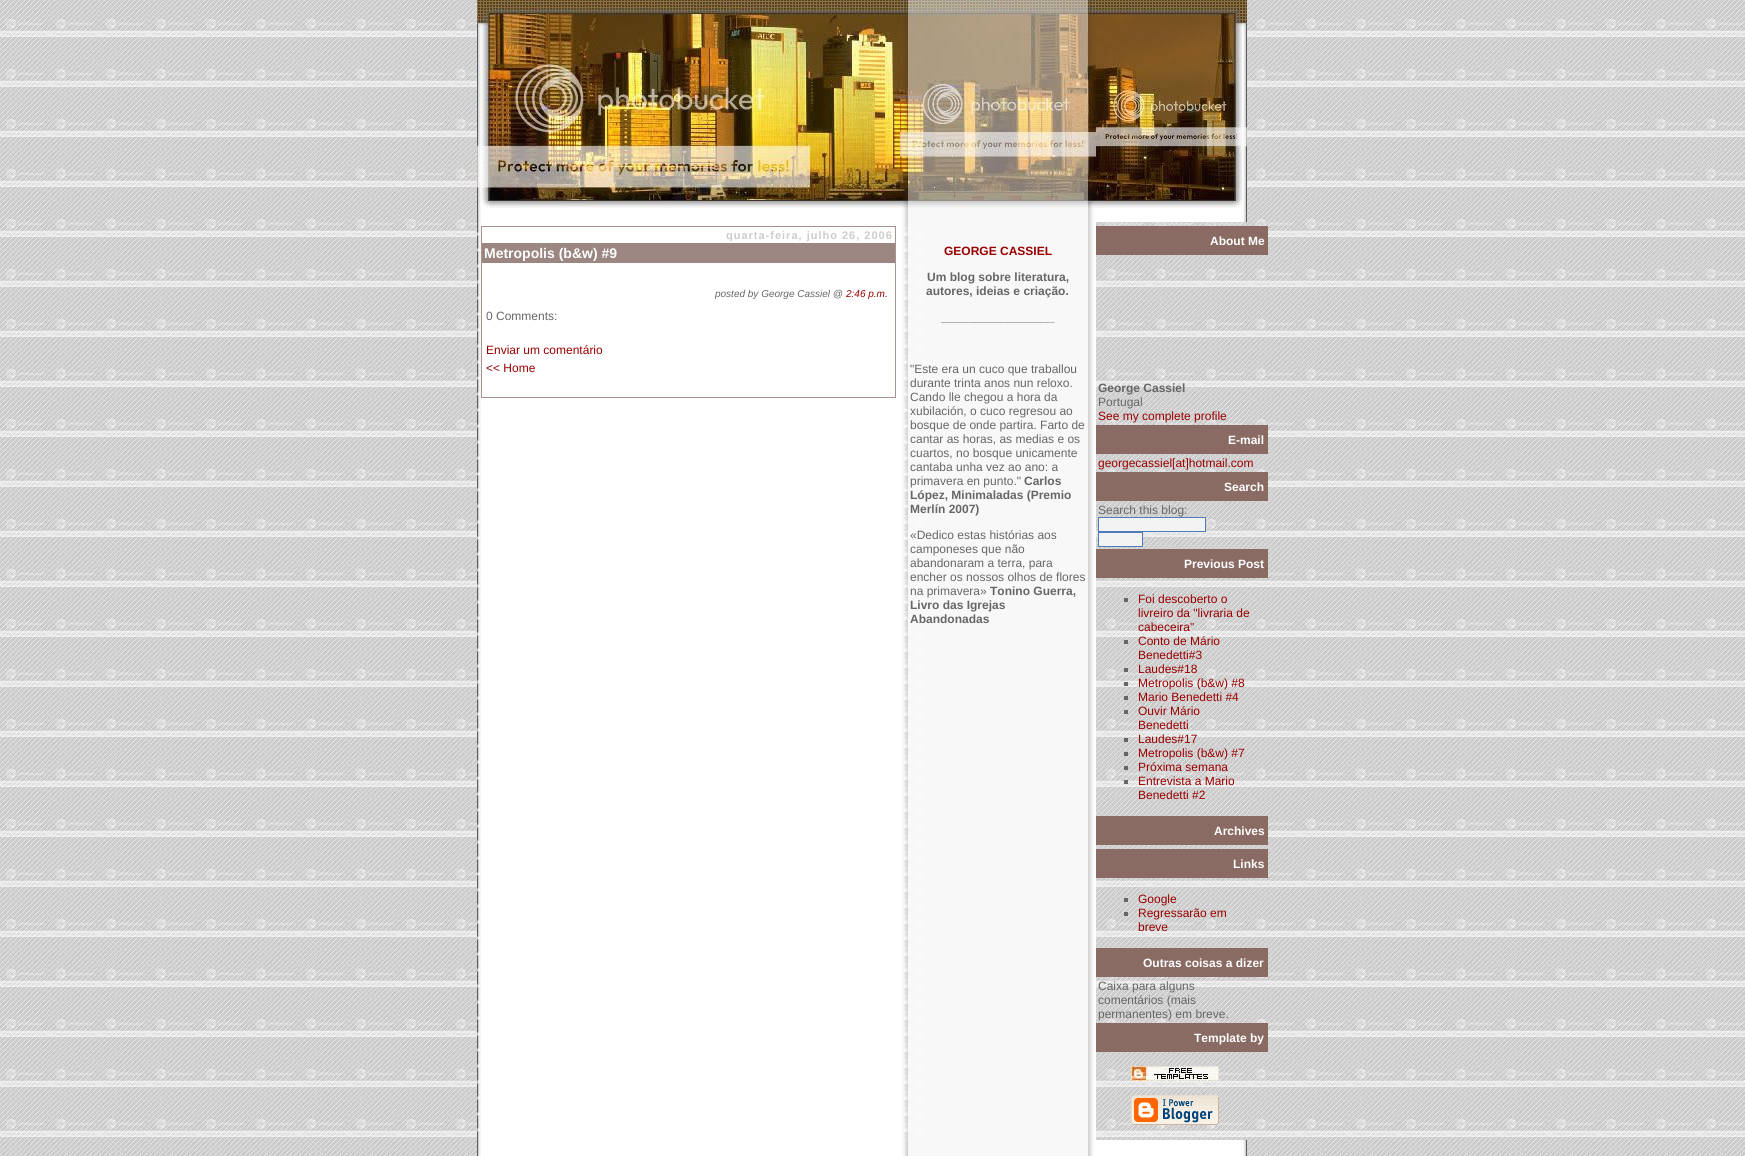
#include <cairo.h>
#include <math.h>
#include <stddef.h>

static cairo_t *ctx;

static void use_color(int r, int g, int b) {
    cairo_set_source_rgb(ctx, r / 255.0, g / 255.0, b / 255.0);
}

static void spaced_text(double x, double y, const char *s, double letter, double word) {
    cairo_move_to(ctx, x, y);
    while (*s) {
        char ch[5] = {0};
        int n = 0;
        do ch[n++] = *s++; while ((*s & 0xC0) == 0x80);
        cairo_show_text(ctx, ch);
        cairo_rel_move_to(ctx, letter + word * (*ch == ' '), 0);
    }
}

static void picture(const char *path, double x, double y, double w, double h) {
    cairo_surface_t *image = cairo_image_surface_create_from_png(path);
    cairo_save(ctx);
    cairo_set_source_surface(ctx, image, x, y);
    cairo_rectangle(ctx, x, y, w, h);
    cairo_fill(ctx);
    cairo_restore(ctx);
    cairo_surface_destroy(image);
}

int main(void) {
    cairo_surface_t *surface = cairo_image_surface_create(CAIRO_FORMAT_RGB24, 1745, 1156);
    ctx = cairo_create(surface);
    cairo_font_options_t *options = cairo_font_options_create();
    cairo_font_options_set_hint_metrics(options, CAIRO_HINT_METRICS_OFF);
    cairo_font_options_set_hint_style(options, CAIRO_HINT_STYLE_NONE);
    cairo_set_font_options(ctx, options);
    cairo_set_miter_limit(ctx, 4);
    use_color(255, 255, 255);
    cairo_paint(ctx);
    picture("img1.png", 0, 0, 1745, 1156);
    picture("img2.png", 477, 0, 423, 222);
    picture("img3.png", 900, 0, 196, 222);
    picture("img4.png", 1096, 0, 151, 222);
    picture("img5.png", 477, 222, 423, 918);
    cairo_rectangle(ctx, 481.5, 226.5, 414, 171);
    use_color(168, 147, 142);
    cairo_set_line_width(ctx, 1);
    cairo_stroke(ctx);
    cairo_select_font_face(ctx, "Liberation Sans", CAIRO_FONT_SLANT_NORMAL, CAIRO_FONT_WEIGHT_BOLD);
    cairo_set_font_size(ctx, 11);
    use_color(204, 204, 204);
    spaced_text(726, 239, "quarta-feira, julho 26, 2006", 1, 0);
    use_color(155, 134, 129);
    cairo_rectangle(ctx, 482, 243, 413, 20);
    cairo_fill(ctx);
    cairo_set_font_size(ctx, 14);
    use_color(255, 255, 255);
    cairo_move_to(ctx, 484, 258);
    cairo_show_text(ctx, "Metropolis (b&w) #9");
    cairo_select_font_face(ctx, "Liberation Sans", CAIRO_FONT_SLANT_ITALIC, CAIRO_FONT_WEIGHT_NORMAL);
    cairo_set_font_size(ctx, 10);
    use_color(102, 102, 102);
    cairo_move_to(ctx, 715, 297);
    cairo_show_text(ctx, "posted by George Cassiel @");
    use_color(153, 0, 0);
    cairo_move_to(ctx, 846, 297);
    cairo_show_text(ctx, "2:46 p.m.");
    cairo_select_font_face(ctx, "Liberation Sans", CAIRO_FONT_SLANT_NORMAL, CAIRO_FONT_WEIGHT_NORMAL);
    cairo_set_font_size(ctx, 12);
    use_color(102, 102, 102);
    cairo_move_to(ctx, 486, 320);
    cairo_show_text(ctx, "0 Comments:");
    use_color(153, 0, 0);
    cairo_move_to(ctx, 486, 354);
    cairo_show_text(ctx, "Enviar um comentário");
    cairo_move_to(ctx, 486, 372);
    cairo_show_text(ctx, "<< Home");
    picture("img6.png", 900, 222, 196, 918);
    cairo_select_font_face(ctx, "Liberation Sans", CAIRO_FONT_SLANT_NORMAL, CAIRO_FONT_WEIGHT_BOLD);
    cairo_move_to(ctx, 944, 255);
    cairo_show_text(ctx, "GEORGE CASSIEL");
    use_color(102, 102, 102);
    cairo_move_to(ctx, 927, 281);
    cairo_show_text(ctx, "Um blog sobre literatura,");
    cairo_move_to(ctx, 926, 295);
    cairo_show_text(ctx, "autores, ideias e criação.");
    cairo_move_to(ctx, 941, 321);
    cairo_show_text(ctx, "_________________");
    cairo_select_font_face(ctx, "Liberation Sans", CAIRO_FONT_SLANT_NORMAL, CAIRO_FONT_WEIGHT_NORMAL);
    cairo_move_to(ctx, 910, 373);
    cairo_show_text(ctx, "\"Este era un cuco que traballou");
    cairo_move_to(ctx, 910, 387);
    cairo_show_text(ctx, "durante trinta anos nun reloxo.");
    cairo_move_to(ctx, 910, 401);
    cairo_show_text(ctx, "Cando lle chegou a hora da");
    cairo_move_to(ctx, 910, 415);
    cairo_show_text(ctx, "xubilación, o cuco regresou ao");
    cairo_move_to(ctx, 910, 429);
    cairo_show_text(ctx, "bosque de onde partira. Farto de");
    cairo_move_to(ctx, 910, 443);
    cairo_show_text(ctx, "cantar as horas, as medias e os");
    cairo_move_to(ctx, 910, 457);
    cairo_show_text(ctx, "cuartos, no bosque unicamente");
    cairo_move_to(ctx, 910, 471);
    cairo_show_text(ctx, "cantaba unha vez ao ano: a");
    cairo_move_to(ctx, 910, 485);
    cairo_show_text(ctx, "primavera en punto.\"");
    cairo_select_font_face(ctx, "Liberation Sans", CAIRO_FONT_SLANT_NORMAL, CAIRO_FONT_WEIGHT_BOLD);
    cairo_move_to(ctx, 1024, 485);
    cairo_show_text(ctx, "Carlos");
    cairo_move_to(ctx, 910, 499);
    cairo_show_text(ctx, "López, Minimaladas (Premio");
    cairo_move_to(ctx, 910, 513);
    cairo_show_text(ctx, "Merlín 2007)");
    cairo_select_font_face(ctx, "Liberation Sans", CAIRO_FONT_SLANT_NORMAL, CAIRO_FONT_WEIGHT_NORMAL);
    cairo_move_to(ctx, 910, 539);
    cairo_show_text(ctx, "«Dedico estas histórias aos");
    cairo_move_to(ctx, 910, 553);
    cairo_show_text(ctx, "camponeses que não");
    cairo_move_to(ctx, 910, 567);
    cairo_show_text(ctx, "abandonaram a terra, para");
    cairo_move_to(ctx, 910, 581);
    cairo_show_text(ctx, "encher os nossos olhos de flores");
    cairo_move_to(ctx, 910, 595);
    cairo_show_text(ctx, "na primavera»");
    cairo_select_font_face(ctx, "Liberation Sans", CAIRO_FONT_SLANT_NORMAL, CAIRO_FONT_WEIGHT_BOLD);
    cairo_move_to(ctx, 990, 595);
    cairo_show_text(ctx, "Tonino Guerra,");
    cairo_move_to(ctx, 910, 609);
    cairo_show_text(ctx, "Livro das Igrejas");
    cairo_move_to(ctx, 910, 623);
    cairo_show_text(ctx, "Abandonadas");
    use_color(137, 107, 99);
    cairo_rectangle(ctx, 1096, 226, 172, 29);
    cairo_fill(ctx);
    use_color(255, 255, 255);
    cairo_move_to(ctx, 1210, 245);
    cairo_show_text(ctx, "About Me");
    use_color(102, 102, 102);
    cairo_move_to(ctx, 1098, 392);
    cairo_show_text(ctx, "George Cassiel");
    cairo_select_font_face(ctx, "Liberation Sans", CAIRO_FONT_SLANT_NORMAL, CAIRO_FONT_WEIGHT_NORMAL);
    cairo_move_to(ctx, 1098, 406);
    cairo_show_text(ctx, "Portugal");
    use_color(153, 0, 0);
    cairo_move_to(ctx, 1098, 420);
    cairo_show_text(ctx, "See my complete profile");
    use_color(137, 107, 99);
    cairo_rectangle(ctx, 1096, 425, 172, 29);
    cairo_fill(ctx);
    cairo_select_font_face(ctx, "Liberation Sans", CAIRO_FONT_SLANT_NORMAL, CAIRO_FONT_WEIGHT_BOLD);
    use_color(255, 255, 255);
    cairo_move_to(ctx, 1228, 444);
    cairo_show_text(ctx, "E-mail");
    cairo_select_font_face(ctx, "Liberation Sans", CAIRO_FONT_SLANT_NORMAL, CAIRO_FONT_WEIGHT_NORMAL);
    use_color(153, 0, 0);
    cairo_move_to(ctx, 1098, 467);
    cairo_show_text(ctx, "georgecassiel[at]hotmail.com");
    use_color(137, 107, 99);
    cairo_rectangle(ctx, 1096, 472, 172, 29);
    cairo_fill(ctx);
    cairo_select_font_face(ctx, "Liberation Sans", CAIRO_FONT_SLANT_NORMAL, CAIRO_FONT_WEIGHT_BOLD);
    use_color(255, 255, 255);
    cairo_move_to(ctx, 1224, 491);
    cairo_show_text(ctx, "Search");
    cairo_select_font_face(ctx, "Liberation Sans", CAIRO_FONT_SLANT_NORMAL, CAIRO_FONT_WEIGHT_NORMAL);
    use_color(102, 102, 102);
    cairo_move_to(ctx, 1098, 514);
    cairo_show_text(ctx, "Search this blog:");
    use_color(243, 243, 243);
    cairo_rectangle(ctx, 1098.5, 517.5, 107, 14);
    cairo_fill_preserve(ctx);
    use_color(78, 124, 186);
    cairo_stroke(ctx);
    use_color(243, 243, 243);
    cairo_rectangle(ctx, 1098.5, 532.5, 44, 14);
    cairo_fill_preserve(ctx);
    use_color(78, 124, 186);
    cairo_stroke(ctx);
    use_color(137, 107, 99);
    cairo_rectangle(ctx, 1096, 549, 172, 29);
    cairo_fill(ctx);
    cairo_select_font_face(ctx, "Liberation Sans", CAIRO_FONT_SLANT_NORMAL, CAIRO_FONT_WEIGHT_BOLD);
    use_color(255, 255, 255);
    cairo_move_to(ctx, 1184, 568);
    cairo_show_text(ctx, "Previous Post");
    use_color(102, 102, 102);
    cairo_rectangle(ctx, 1124, 598, 4, 4);
    cairo_fill(ctx);
    cairo_select_font_face(ctx, "Liberation Sans", CAIRO_FONT_SLANT_NORMAL, CAIRO_FONT_WEIGHT_NORMAL);
    use_color(153, 0, 0);
    cairo_move_to(ctx, 1138, 603);
    cairo_show_text(ctx, "Foi descoberto o");
    cairo_move_to(ctx, 1138, 617);
    cairo_show_text(ctx, "livreiro da \"livraria de");
    cairo_move_to(ctx, 1138, 631);
    cairo_show_text(ctx, "cabeceira\"");
    use_color(102, 102, 102);
    cairo_rectangle(ctx, 1124, 640, 4, 4);
    cairo_fill(ctx);
    use_color(153, 0, 0);
    cairo_move_to(ctx, 1138, 645);
    cairo_show_text(ctx, "Conto de Mário");
    cairo_move_to(ctx, 1138, 659);
    cairo_show_text(ctx, "Benedetti#3");
    use_color(102, 102, 102);
    cairo_rectangle(ctx, 1124, 668, 4, 4);
    cairo_fill(ctx);
    use_color(153, 0, 0);
    cairo_move_to(ctx, 1138, 673);
    cairo_show_text(ctx, "Laudes#18");
    use_color(102, 102, 102);
    cairo_rectangle(ctx, 1124, 682, 4, 4);
    cairo_fill(ctx);
    use_color(153, 0, 0);
    cairo_move_to(ctx, 1138, 687);
    cairo_show_text(ctx, "Metropolis (b&w) #8");
    use_color(102, 102, 102);
    cairo_rectangle(ctx, 1124, 696, 4, 4);
    cairo_fill(ctx);
    use_color(153, 0, 0);
    cairo_move_to(ctx, 1138, 701);
    cairo_show_text(ctx, "Mario Benedetti #4");
    use_color(102, 102, 102);
    cairo_rectangle(ctx, 1124, 710, 4, 4);
    cairo_fill(ctx);
    use_color(153, 0, 0);
    cairo_move_to(ctx, 1138, 715);
    cairo_show_text(ctx, "Ouvir Mário");
    cairo_move_to(ctx, 1138, 729);
    cairo_show_text(ctx, "Benedetti");
    use_color(102, 102, 102);
    cairo_rectangle(ctx, 1124, 738, 4, 4);
    cairo_fill(ctx);
    use_color(153, 0, 0);
    cairo_move_to(ctx, 1138, 743);
    cairo_show_text(ctx, "Laudes#17");
    use_color(102, 102, 102);
    cairo_rectangle(ctx, 1124, 752, 4, 4);
    cairo_fill(ctx);
    use_color(153, 0, 0);
    cairo_move_to(ctx, 1138, 757);
    cairo_show_text(ctx, "Metropolis (b&w) #7");
    use_color(102, 102, 102);
    cairo_rectangle(ctx, 1124, 766, 4, 4);
    cairo_fill(ctx);
    use_color(153, 0, 0);
    cairo_move_to(ctx, 1138, 771);
    cairo_show_text(ctx, "Próxima semana");
    use_color(102, 102, 102);
    cairo_rectangle(ctx, 1124, 780, 4, 4);
    cairo_fill(ctx);
    use_color(153, 0, 0);
    cairo_move_to(ctx, 1138, 785);
    cairo_show_text(ctx, "Entrevista a Mario");
    cairo_move_to(ctx, 1138, 799);
    cairo_show_text(ctx, "Benedetti #2");
    use_color(137, 107, 99);
    cairo_rectangle(ctx, 1096, 816, 172, 29);
    cairo_fill(ctx);
    cairo_select_font_face(ctx, "Liberation Sans", CAIRO_FONT_SLANT_NORMAL, CAIRO_FONT_WEIGHT_BOLD);
    use_color(255, 255, 255);
    cairo_move_to(ctx, 1214, 835);
    cairo_show_text(ctx, "Archives");
    use_color(137, 107, 99);
    cairo_rectangle(ctx, 1096, 849, 172, 29);
    cairo_fill(ctx);
    use_color(255, 255, 255);
    cairo_move_to(ctx, 1233, 868);
    cairo_show_text(ctx, "Links");
    use_color(102, 102, 102);
    cairo_rectangle(ctx, 1124, 898, 4, 4);
    cairo_fill(ctx);
    cairo_select_font_face(ctx, "Liberation Sans", CAIRO_FONT_SLANT_NORMAL, CAIRO_FONT_WEIGHT_NORMAL);
    use_color(153, 0, 0);
    cairo_move_to(ctx, 1138, 903);
    cairo_show_text(ctx, "Google");
    use_color(102, 102, 102);
    cairo_rectangle(ctx, 1124, 912, 4, 4);
    cairo_fill(ctx);
    use_color(153, 0, 0);
    cairo_move_to(ctx, 1138, 917);
    cairo_show_text(ctx, "Regressarão em");
    cairo_move_to(ctx, 1138, 931);
    cairo_show_text(ctx, "breve");
    use_color(137, 107, 99);
    cairo_rectangle(ctx, 1096, 948, 172, 29);
    cairo_fill(ctx);
    cairo_select_font_face(ctx, "Liberation Sans", CAIRO_FONT_SLANT_NORMAL, CAIRO_FONT_WEIGHT_BOLD);
    use_color(255, 255, 255);
    cairo_move_to(ctx, 1143, 967);
    cairo_show_text(ctx, "Outras coisas a dizer");
    cairo_select_font_face(ctx, "Liberation Sans", CAIRO_FONT_SLANT_NORMAL, CAIRO_FONT_WEIGHT_NORMAL);
    use_color(102, 102, 102);
    cairo_move_to(ctx, 1098, 990);
    cairo_show_text(ctx, "Caixa para alguns");
    cairo_move_to(ctx, 1098, 1004);
    cairo_show_text(ctx, "comentários (mais");
    cairo_move_to(ctx, 1098, 1018);
    cairo_show_text(ctx, "permanentes) em breve.");
    use_color(137, 107, 99);
    cairo_rectangle(ctx, 1096, 1023, 172, 29);
    cairo_fill(ctx);
    cairo_select_font_face(ctx, "Liberation Sans", CAIRO_FONT_SLANT_NORMAL, CAIRO_FONT_WEIGHT_BOLD);
    use_color(255, 255, 255);
    cairo_move_to(ctx, 1194, 1042);
    cairo_show_text(ctx, "Template by");
    picture("img7.png", 1131, 1066, 88, 15);
    picture("img8.png", 1131, 1095, 88, 30);
    picture("img9.png", 477, 1140, 423, 16);
    picture("img10.png", 900, 1140, 196, 16);
    picture("img11.png", 1096, 1140, 151, 16);
    cairo_surface_write_to_png(surface, "result.png");
    cairo_font_options_destroy(options);
    cairo_destroy(ctx);
    cairo_surface_destroy(surface);
    return 0;
}
